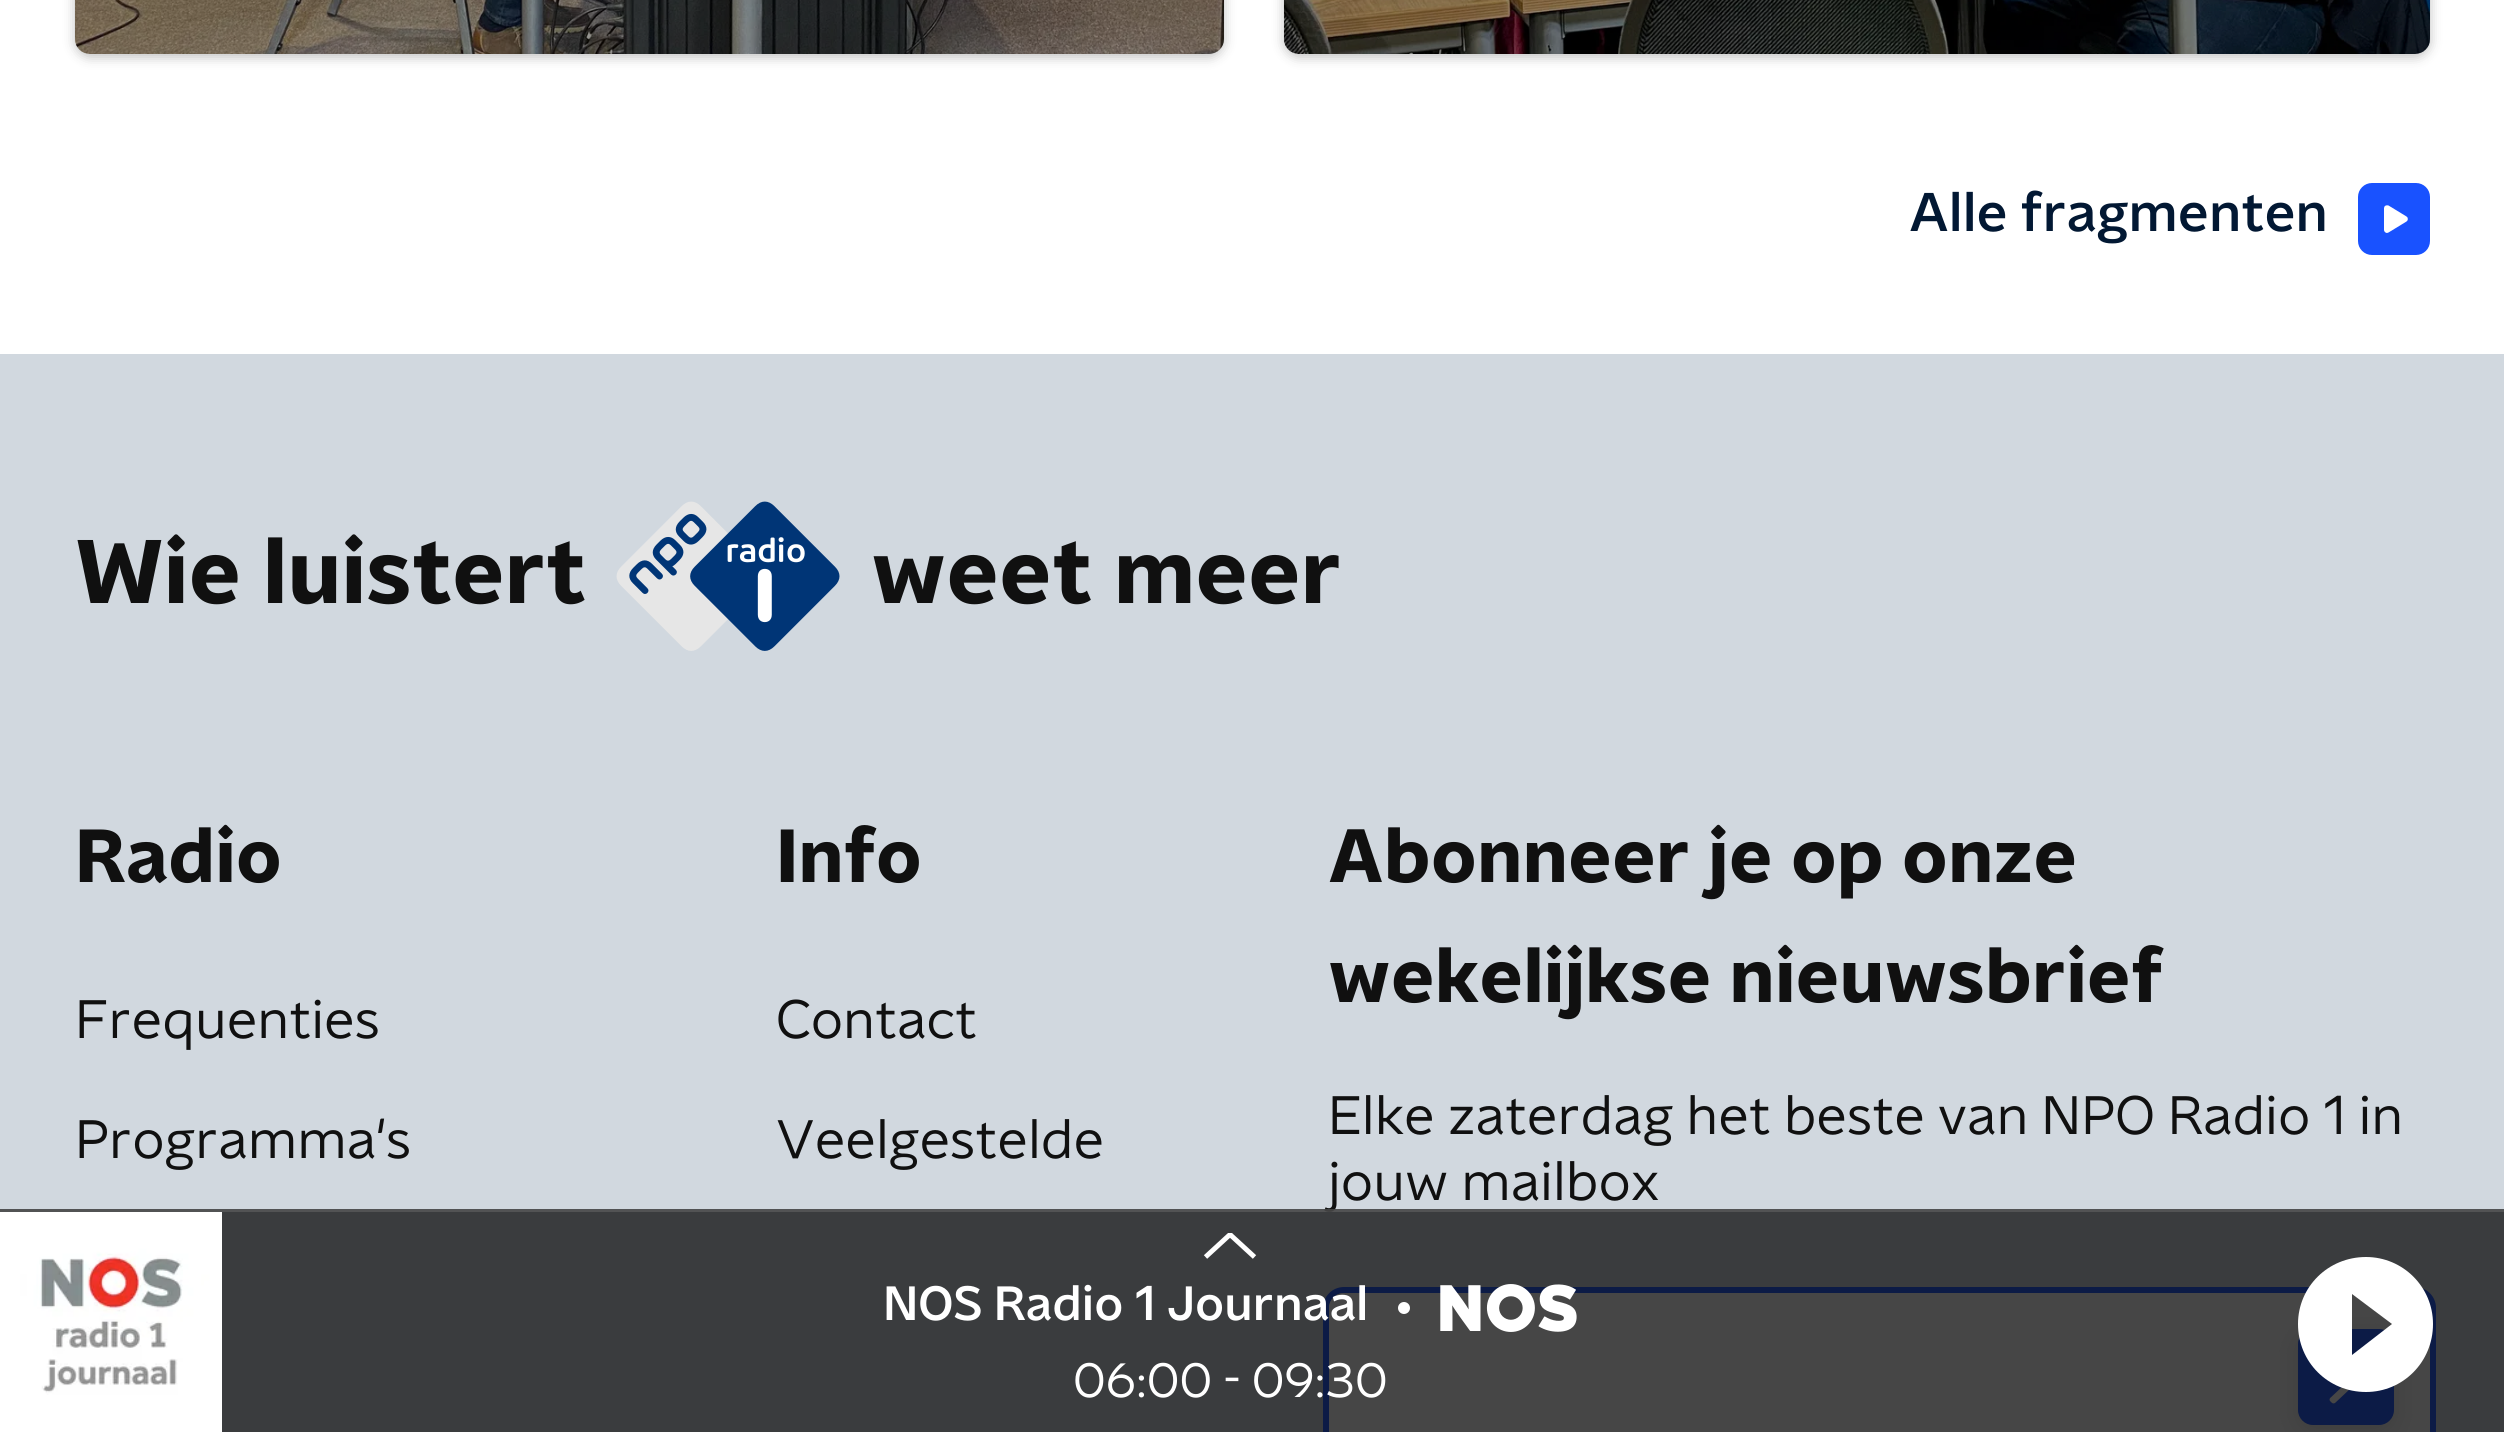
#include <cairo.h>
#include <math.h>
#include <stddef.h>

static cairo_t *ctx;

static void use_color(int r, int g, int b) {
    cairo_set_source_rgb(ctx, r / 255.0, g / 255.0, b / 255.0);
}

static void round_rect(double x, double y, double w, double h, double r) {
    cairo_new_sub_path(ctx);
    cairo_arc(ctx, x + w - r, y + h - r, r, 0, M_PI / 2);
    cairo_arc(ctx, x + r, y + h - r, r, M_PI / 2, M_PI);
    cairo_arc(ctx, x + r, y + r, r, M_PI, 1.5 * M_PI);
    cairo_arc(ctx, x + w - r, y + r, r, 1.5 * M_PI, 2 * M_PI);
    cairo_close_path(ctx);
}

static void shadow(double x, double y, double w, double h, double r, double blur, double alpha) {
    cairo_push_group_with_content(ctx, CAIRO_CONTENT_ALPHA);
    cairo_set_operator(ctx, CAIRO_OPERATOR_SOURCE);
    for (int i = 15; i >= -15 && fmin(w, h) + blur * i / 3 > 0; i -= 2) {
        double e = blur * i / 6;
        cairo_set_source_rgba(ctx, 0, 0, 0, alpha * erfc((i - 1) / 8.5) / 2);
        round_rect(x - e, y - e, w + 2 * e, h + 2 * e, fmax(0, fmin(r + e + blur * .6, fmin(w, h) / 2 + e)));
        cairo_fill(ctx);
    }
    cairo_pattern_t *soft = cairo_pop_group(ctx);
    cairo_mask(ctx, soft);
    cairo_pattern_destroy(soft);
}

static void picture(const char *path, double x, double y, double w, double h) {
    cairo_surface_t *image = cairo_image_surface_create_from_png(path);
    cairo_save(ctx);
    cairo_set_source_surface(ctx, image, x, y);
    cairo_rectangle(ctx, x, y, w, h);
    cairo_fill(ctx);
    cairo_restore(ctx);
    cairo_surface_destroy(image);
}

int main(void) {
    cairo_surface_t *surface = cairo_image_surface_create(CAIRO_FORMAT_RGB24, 2504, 1432);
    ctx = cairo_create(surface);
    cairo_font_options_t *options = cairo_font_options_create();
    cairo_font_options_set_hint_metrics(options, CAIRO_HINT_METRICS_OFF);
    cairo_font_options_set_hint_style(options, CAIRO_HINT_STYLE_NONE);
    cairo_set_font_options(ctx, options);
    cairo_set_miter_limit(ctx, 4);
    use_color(209, 216, 223);
    cairo_paint(ctx);
    use_color(255, 255, 255);
    cairo_rectangle(ctx, 0, 0, 2504, 354);
    cairo_fill(ctx);
    use_color(0, 0, 0);
    shadow(75, -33, 1149, 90, 15, 6, 0.25);
    use_color(255, 255, 255);
    round_rect(75, -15, 1149, 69, 15);
    cairo_fill(ctx);
    picture("img1.png", 75, 0, 1149, 54);
    cairo_set_source_rgba(ctx, 0, 0, 0, 0.4);
    cairo_new_path(ctx);
    cairo_move_to(ctx, 75, -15);
    cairo_line_to(ctx, 1224, -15);
    cairo_line_to(ctx, 1224, 39);
    cairo_curve_to(ctx, 1224, 47.5, 1217.5, 54, 1209, 54);
    cairo_line_to(ctx, 90, 54);
    cairo_curve_to(ctx, 81.5, 54, 75, 47.5, 75, 39);
    cairo_close_path(ctx);
    cairo_fill(ctx);
    use_color(0, 0, 0);
    shadow(1284, -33, 1146, 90, 15, 6, 0.25);
    use_color(255, 255, 255);
    round_rect(1284, -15, 1146, 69, 15);
    cairo_fill(ctx);
    picture("img2.png", 1284, 0, 1146, 54);
    cairo_set_source_rgba(ctx, 0, 0, 0, 0.4);
    cairo_new_path(ctx);
    cairo_move_to(ctx, 1284, -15);
    cairo_line_to(ctx, 2430, -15);
    cairo_line_to(ctx, 2430, 39);
    cairo_curve_to(ctx, 2430, 47.5, 2423.5, 54, 2415, 54);
    cairo_line_to(ctx, 1299, 54);
    cairo_curve_to(ctx, 1290.5, 54, 1284, 47.5, 1284, 39);
    cairo_close_path(ctx);
    cairo_fill(ctx);
    cairo_select_font_face(ctx, "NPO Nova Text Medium", CAIRO_FONT_SLANT_NORMAL, CAIRO_FONT_WEIGHT_NORMAL);
    cairo_set_font_size(ctx, 54);
    use_color(2, 24, 51);
    cairo_move_to(ctx, 1909, 231);
    cairo_show_text(ctx, "Alle fragmenten");
    use_color(25, 82, 255);
    round_rect(2358, 183, 72, 72, 14);
    cairo_fill(ctx);
    use_color(255, 255, 255);
    cairo_set_fill_rule(ctx, CAIRO_FILL_RULE_EVEN_ODD);
    cairo_new_path(ctx);
    cairo_move_to(ctx, 2388.5, 232.5);
    cairo_line_to(ctx, 2406.5, 221.5);
    cairo_curve_to(ctx, 2408, 220.5, 2408, 219, 2407.5, 217.5);
    cairo_line_to(ctx, 2406.5, 216.5);
    cairo_line_to(ctx, 2388.5, 205.5);
    cairo_curve_to(ctx, 2387, 205, 2385, 205.5, 2384.5, 206.5);
    cairo_line_to(ctx, 2384, 208);
    cairo_line_to(ctx, 2384, 230);
    cairo_curve_to(ctx, 2384, 231.5, 2385.5, 233, 2387, 233);
    cairo_close_path(ctx);
    cairo_fill(ctx);
    cairo_select_font_face(ctx, "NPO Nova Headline", CAIRO_FONT_SLANT_NORMAL, CAIRO_FONT_WEIGHT_BOLD);
    cairo_set_font_size(ctx, 90);
    use_color(16, 16, 16);
    cairo_move_to(ctx, 75, 603);
    cairo_show_text(ctx, "Wie luistert");
    picture("img3.png", 616, 501, 224, 150);
    cairo_move_to(ctx, 871, 603);
    cairo_show_text(ctx, "weet meer");
    cairo_set_font_size(ctx, 75);
    cairo_move_to(ctx, 75, 882);
    cairo_show_text(ctx, "Radio");
    cairo_select_font_face(ctx, "NPO Nova Text", CAIRO_FONT_SLANT_NORMAL, CAIRO_FONT_WEIGHT_NORMAL);
    cairo_set_font_size(ctx, 54);
    cairo_move_to(ctx, 75, 1038);
    cairo_show_text(ctx, "Frequenties");
    cairo_move_to(ctx, 75, 1158);
    cairo_show_text(ctx, "Programma's");
    cairo_select_font_face(ctx, "NPO Nova Headline", CAIRO_FONT_SLANT_NORMAL, CAIRO_FONT_WEIGHT_BOLD);
    cairo_set_font_size(ctx, 75);
    cairo_move_to(ctx, 776, 882);
    cairo_show_text(ctx, "Info");
    cairo_select_font_face(ctx, "NPO Nova Text", CAIRO_FONT_SLANT_NORMAL, CAIRO_FONT_WEIGHT_NORMAL);
    cairo_set_font_size(ctx, 54);
    cairo_move_to(ctx, 776, 1038);
    cairo_show_text(ctx, "Contact");
    cairo_move_to(ctx, 776, 1158);
    cairo_show_text(ctx, "Veelgestelde");
    cairo_select_font_face(ctx, "NPO Nova Headline", CAIRO_FONT_SLANT_NORMAL, CAIRO_FONT_WEIGHT_BOLD);
    cairo_set_font_size(ctx, 75);
    cairo_move_to(ctx, 1328, 882);
    cairo_show_text(ctx, "Abonneer je op onze");
    cairo_move_to(ctx, 1328, 1002);
    cairo_show_text(ctx, "wekelijkse nieuwsbrief");
    cairo_select_font_face(ctx, "NPO Nova Text", CAIRO_FONT_SLANT_NORMAL, CAIRO_FONT_WEIGHT_NORMAL);
    cairo_set_font_size(ctx, 54);
    cairo_move_to(ctx, 1328, 1134);
    cairo_show_text(ctx, "Elke zaterdag het beste van NPO Radio 1 in");
    cairo_move_to(ctx, 1328, 1200);
    cairo_show_text(ctx, "jouw mailbox");
    round_rect(1326, 1290, 1107, 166, 18);
    use_color(25, 82, 255);
    cairo_set_line_width(ctx, 6);
    cairo_stroke(ctx);
    use_color(255, 255, 255);
    round_rect(1329, 1293, 1101, 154, 15);
    cairo_fill(ctx);
    use_color(0, 0, 0);
    shadow(2295, 1332, 102, 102, 18, 10.5, 0.1);
    use_color(25, 82, 255);
    round_rect(2298, 1329, 96, 96, 15);
    cairo_fill(ctx);
    picture("img4.png", 2329, 1387, 21, 17);
    cairo_set_source_rgba(ctx, 0.035, 0.035, 0.035, 0.75);
    cairo_rectangle(ctx, 0, 1209, 2504, 223);
    cairo_fill(ctx);
    cairo_set_source_rgba(ctx, 0.373, 0.373, 0.373, 0.65);
    cairo_rectangle(ctx, 0, 1209, 2504, 3);
    cairo_fill(ctx);
    picture("img5.png", 0, 1212, 222, 220);
    cairo_save(ctx);
    cairo_set_fill_rule(ctx, CAIRO_FILL_RULE_WINDING);
    cairo_rectangle(ctx, 1203, 1233, 54, 27);
    cairo_clip(ctx);
    cairo_new_path(ctx);
    cairo_move_to(ctx, 1254.5, 1257);
    cairo_line_to(ctx, 1230, 1234.5);
    cairo_line_to(ctx, 1205.5, 1257);
    use_color(255, 255, 255);
    cairo_set_line_width(ctx, 4.9);
    cairo_stroke(ctx);
    cairo_restore(ctx);
    cairo_select_font_face(ctx, "NPO Nova Text Medium", CAIRO_FONT_SLANT_NORMAL, CAIRO_FONT_WEIGHT_NORMAL);
    cairo_set_font_size(ctx, 48);
    use_color(255, 255, 255);
    cairo_move_to(ctx, 883, 1320);
    cairo_show_text(ctx, "NOS Radio 1 Journaal");
    cairo_new_path(ctx);
    cairo_arc(ctx, 1404, 1308, 6, 0, 2 * M_PI);
    cairo_fill(ctx);
    picture("img6.png", 1440, 1284, 137, 48);
    cairo_select_font_face(ctx, "NPO Nova Text", CAIRO_FONT_SLANT_NORMAL, CAIRO_FONT_WEIGHT_NORMAL);
    cairo_move_to(ctx, 1073, 1397);
    cairo_show_text(ctx, "06:00 - 09:30");
    cairo_set_fill_rule(ctx, CAIRO_FILL_RULE_WINDING);
    cairo_new_path(ctx);
    cairo_move_to(ctx, 2366, 1257);
    cairo_curve_to(ctx, 2328, 1257, 2298, 1287, 2298, 1324);
    cairo_curve_to(ctx, 2298, 1362, 2328, 1392, 2366, 1392);
    cairo_curve_to(ctx, 2403, 1392, 2433, 1362, 2433, 1324);
    cairo_curve_to(ctx, 2433, 1287, 2403, 1257, 2366, 1257);
    cairo_close_path(ctx);
    cairo_move_to(ctx, 2352, 1355);
    cairo_line_to(ctx, 2352, 1294);
    cairo_line_to(ctx, 2392, 1324);
    cairo_close_path(ctx);
    cairo_fill(ctx);
    cairo_surface_write_to_png(surface, "result.png");
    cairo_font_options_destroy(options);
    cairo_destroy(ctx);
    cairo_surface_destroy(surface);
    return 0;
}
